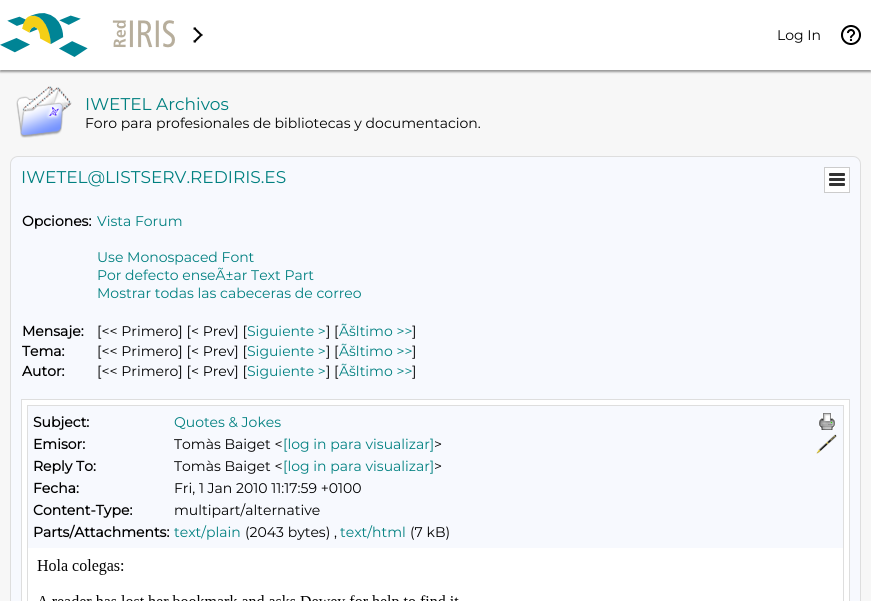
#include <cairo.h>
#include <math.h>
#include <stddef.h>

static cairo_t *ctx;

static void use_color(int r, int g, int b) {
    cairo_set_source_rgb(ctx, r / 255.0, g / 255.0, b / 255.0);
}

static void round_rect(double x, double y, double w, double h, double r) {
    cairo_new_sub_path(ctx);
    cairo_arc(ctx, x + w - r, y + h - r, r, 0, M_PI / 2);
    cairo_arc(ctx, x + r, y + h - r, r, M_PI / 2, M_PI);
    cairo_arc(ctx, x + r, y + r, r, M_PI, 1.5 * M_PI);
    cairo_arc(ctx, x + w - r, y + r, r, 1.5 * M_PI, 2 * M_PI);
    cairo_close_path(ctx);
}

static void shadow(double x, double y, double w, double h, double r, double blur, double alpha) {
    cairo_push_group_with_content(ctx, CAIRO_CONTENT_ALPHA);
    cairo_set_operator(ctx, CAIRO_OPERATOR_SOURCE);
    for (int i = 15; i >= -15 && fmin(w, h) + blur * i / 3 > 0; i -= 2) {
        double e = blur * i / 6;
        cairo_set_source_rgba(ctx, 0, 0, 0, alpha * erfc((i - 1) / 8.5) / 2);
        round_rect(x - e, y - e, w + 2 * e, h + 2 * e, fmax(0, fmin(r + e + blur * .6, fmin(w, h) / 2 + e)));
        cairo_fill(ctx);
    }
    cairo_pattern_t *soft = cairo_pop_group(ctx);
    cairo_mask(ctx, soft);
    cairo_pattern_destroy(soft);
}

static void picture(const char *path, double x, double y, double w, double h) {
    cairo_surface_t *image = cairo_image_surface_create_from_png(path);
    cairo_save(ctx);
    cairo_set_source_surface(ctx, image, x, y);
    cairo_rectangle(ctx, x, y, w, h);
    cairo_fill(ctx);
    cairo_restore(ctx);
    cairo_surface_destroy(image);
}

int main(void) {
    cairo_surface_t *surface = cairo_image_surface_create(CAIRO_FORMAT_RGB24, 871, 601);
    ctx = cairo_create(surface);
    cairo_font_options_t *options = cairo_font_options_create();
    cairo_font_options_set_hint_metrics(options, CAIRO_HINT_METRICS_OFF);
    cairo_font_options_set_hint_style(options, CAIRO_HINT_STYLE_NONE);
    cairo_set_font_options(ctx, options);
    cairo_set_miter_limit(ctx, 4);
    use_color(247, 247, 247);
    cairo_paint(ctx);
    use_color(153, 153, 153);
    shadow(0, 2, 871, 70, 0, 1, 1);
    use_color(255, 255, 255);
    cairo_rectangle(ctx, 0, 0, 871, 70);
    cairo_fill(ctx);
    picture("img1.png", 0, 13, 175, 44);
    picture("img2.png", 193, 27, 10, 16);
    cairo_select_font_face(ctx, "Montserrat Thin", CAIRO_FONT_SLANT_NORMAL, CAIRO_FONT_WEIGHT_NORMAL);
    cairo_set_font_size(ctx, 14);
    use_color(0, 0, 0);
    cairo_move_to(ctx, 777, 40);
    cairo_show_text(ctx, "Log In");
    picture("img3.png", 841, 25, 20, 20);
    picture("img4.png", 16, 86, 56, 52);
    cairo_set_font_size(ctx, 17);
    use_color(0, 128, 128);
    cairo_move_to(ctx, 85, 110);
    cairo_show_text(ctx, "IWETEL Archivos");
    cairo_set_font_size(ctx, 14);
    use_color(0, 0, 0);
    cairo_move_to(ctx, 85, 128);
    cairo_show_text(ctx, "Foro para profesionales de bibliotecas y documentacion.");
    use_color(247, 249, 254);
    round_rect(10.5, 156.5, 850, 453, 7.5);
    cairo_fill_preserve(ctx);
    use_color(222, 222, 222);
    cairo_set_line_width(ctx, 1);
    cairo_stroke(ctx);
    cairo_set_font_size(ctx, 17);
    use_color(0, 128, 128);
    cairo_move_to(ctx, 21, 183);
    cairo_show_text(ctx, "IWETEL@LISTSERV.REDIRIS.ES");
    use_color(255, 255, 255);
    cairo_rectangle(ctx, 824.5, 167.5, 25, 25);
    cairo_fill_preserve(ctx);
    use_color(204, 204, 204);
    cairo_stroke(ctx);
    picture("img5.png", 829, 173, 16, 13);
    cairo_select_font_face(ctx, "Montserrat", CAIRO_FONT_SLANT_NORMAL, CAIRO_FONT_WEIGHT_BOLD);
    cairo_set_font_size(ctx, 14);
    use_color(0, 0, 0);
    cairo_move_to(ctx, 22, 226);
    cairo_show_text(ctx, "Opciones:");
    cairo_select_font_face(ctx, "Montserrat Thin", CAIRO_FONT_SLANT_NORMAL, CAIRO_FONT_WEIGHT_NORMAL);
    use_color(0, 128, 128);
    cairo_move_to(ctx, 97, 226);
    cairo_show_text(ctx, "Vista Forum");
    cairo_move_to(ctx, 97, 262);
    cairo_show_text(ctx, "Use Monospaced Font");
    cairo_move_to(ctx, 97, 280);
    cairo_show_text(ctx, "Por defecto enseÃ±ar Text Part");
    cairo_move_to(ctx, 97, 298);
    cairo_show_text(ctx, "Mostrar todas las cabeceras de correo");
    cairo_select_font_face(ctx, "Montserrat", CAIRO_FONT_SLANT_NORMAL, CAIRO_FONT_WEIGHT_BOLD);
    use_color(0, 0, 0);
    cairo_move_to(ctx, 22, 336);
    cairo_show_text(ctx, "Mensaje:");
    cairo_select_font_face(ctx, "Montserrat Thin", CAIRO_FONT_SLANT_NORMAL, CAIRO_FONT_WEIGHT_NORMAL);
    cairo_move_to(ctx, 97, 336);
    cairo_show_text(ctx, "[<< Primero] [< Prev] [");
    use_color(0, 128, 128);
    cairo_move_to(ctx, 247, 336);
    cairo_show_text(ctx, "Siguiente >");
    use_color(0, 0, 0);
    cairo_move_to(ctx, 326, 336);
    cairo_show_text(ctx, "] [");
    use_color(0, 128, 128);
    cairo_move_to(ctx, 339, 336);
    cairo_show_text(ctx, "Ãšltimo >>");
    use_color(0, 0, 0);
    cairo_move_to(ctx, 412, 336);
    cairo_show_text(ctx, "]");
    cairo_select_font_face(ctx, "Montserrat", CAIRO_FONT_SLANT_NORMAL, CAIRO_FONT_WEIGHT_BOLD);
    cairo_move_to(ctx, 22, 356);
    cairo_show_text(ctx, "Tema:");
    cairo_select_font_face(ctx, "Montserrat Thin", CAIRO_FONT_SLANT_NORMAL, CAIRO_FONT_WEIGHT_NORMAL);
    cairo_move_to(ctx, 97, 356);
    cairo_show_text(ctx, "[<< Primero] [< Prev] [");
    use_color(0, 128, 128);
    cairo_move_to(ctx, 247, 356);
    cairo_show_text(ctx, "Siguiente >");
    use_color(0, 0, 0);
    cairo_move_to(ctx, 326, 356);
    cairo_show_text(ctx, "] [");
    use_color(0, 128, 128);
    cairo_move_to(ctx, 339, 356);
    cairo_show_text(ctx, "Ãšltimo >>");
    use_color(0, 0, 0);
    cairo_move_to(ctx, 412, 356);
    cairo_show_text(ctx, "]");
    cairo_select_font_face(ctx, "Montserrat", CAIRO_FONT_SLANT_NORMAL, CAIRO_FONT_WEIGHT_BOLD);
    cairo_move_to(ctx, 22, 376);
    cairo_show_text(ctx, "Autor:");
    cairo_select_font_face(ctx, "Montserrat Thin", CAIRO_FONT_SLANT_NORMAL, CAIRO_FONT_WEIGHT_NORMAL);
    cairo_move_to(ctx, 97, 376);
    cairo_show_text(ctx, "[<< Primero] [< Prev] [");
    use_color(0, 128, 128);
    cairo_move_to(ctx, 247, 376);
    cairo_show_text(ctx, "Siguiente >");
    use_color(0, 0, 0);
    cairo_move_to(ctx, 326, 376);
    cairo_show_text(ctx, "] [");
    use_color(0, 128, 128);
    cairo_move_to(ctx, 339, 376);
    cairo_show_text(ctx, "Ãšltimo >>");
    use_color(0, 0, 0);
    cairo_move_to(ctx, 412, 376);
    cairo_show_text(ctx, "]");
    cairo_rectangle(ctx, 21.5, 399.5, 828, 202);
    use_color(222, 222, 222);
    cairo_stroke(ctx);
    use_color(255, 255, 255);
    cairo_rectangle(ctx, 22, 400, 827, 201);
    cairo_fill(ctx);
    cairo_rectangle(ctx, 27.5, 405.5, 816, 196);
    use_color(222, 222, 222);
    cairo_stroke(ctx);
    use_color(247, 249, 254);
    cairo_rectangle(ctx, 28, 406, 815, 142);
    cairo_fill(ctx);
    cairo_select_font_face(ctx, "Montserrat", CAIRO_FONT_SLANT_NORMAL, CAIRO_FONT_WEIGHT_BOLD);
    use_color(0, 0, 0);
    cairo_move_to(ctx, 33, 427);
    cairo_show_text(ctx, "Subject:");
    cairo_select_font_face(ctx, "Montserrat Thin", CAIRO_FONT_SLANT_NORMAL, CAIRO_FONT_WEIGHT_NORMAL);
    use_color(0, 128, 128);
    cairo_move_to(ctx, 174, 427);
    cairo_show_text(ctx, "Quotes & Jokes");
    cairo_select_font_face(ctx, "Montserrat", CAIRO_FONT_SLANT_NORMAL, CAIRO_FONT_WEIGHT_BOLD);
    use_color(0, 0, 0);
    cairo_move_to(ctx, 33, 449);
    cairo_show_text(ctx, "Emisor:");
    cairo_select_font_face(ctx, "Montserrat Thin", CAIRO_FONT_SLANT_NORMAL, CAIRO_FONT_WEIGHT_NORMAL);
    cairo_move_to(ctx, 174, 449);
    cairo_show_text(ctx, "Tomàs Baiget <");
    use_color(0, 128, 128);
    cairo_move_to(ctx, 283, 449);
    cairo_show_text(ctx, "[log in para visualizar]");
    use_color(0, 0, 0);
    cairo_move_to(ctx, 434, 449);
    cairo_show_text(ctx, ">");
    cairo_select_font_face(ctx, "Montserrat", CAIRO_FONT_SLANT_NORMAL, CAIRO_FONT_WEIGHT_BOLD);
    cairo_move_to(ctx, 33, 471);
    cairo_show_text(ctx, "Reply To:");
    cairo_select_font_face(ctx, "Montserrat Thin", CAIRO_FONT_SLANT_NORMAL, CAIRO_FONT_WEIGHT_NORMAL);
    cairo_move_to(ctx, 174, 471);
    cairo_show_text(ctx, "Tomàs Baiget <");
    use_color(0, 128, 128);
    cairo_move_to(ctx, 283, 471);
    cairo_show_text(ctx, "[log in para visualizar]");
    use_color(0, 0, 0);
    cairo_move_to(ctx, 434, 471);
    cairo_show_text(ctx, ">");
    cairo_select_font_face(ctx, "Montserrat", CAIRO_FONT_SLANT_NORMAL, CAIRO_FONT_WEIGHT_BOLD);
    cairo_move_to(ctx, 33, 493);
    cairo_show_text(ctx, "Fecha:");
    cairo_select_font_face(ctx, "Montserrat Thin", CAIRO_FONT_SLANT_NORMAL, CAIRO_FONT_WEIGHT_NORMAL);
    cairo_move_to(ctx, 174, 493);
    cairo_show_text(ctx, "Fri, 1 Jan 2010 11:17:59 +0100");
    cairo_select_font_face(ctx, "Montserrat", CAIRO_FONT_SLANT_NORMAL, CAIRO_FONT_WEIGHT_BOLD);
    cairo_move_to(ctx, 33, 515);
    cairo_show_text(ctx, "Content-Type:");
    cairo_select_font_face(ctx, "Montserrat Thin", CAIRO_FONT_SLANT_NORMAL, CAIRO_FONT_WEIGHT_NORMAL);
    cairo_move_to(ctx, 174, 515);
    cairo_show_text(ctx, "multipart/alternative");
    cairo_select_font_face(ctx, "Montserrat", CAIRO_FONT_SLANT_NORMAL, CAIRO_FONT_WEIGHT_BOLD);
    cairo_move_to(ctx, 33, 537);
    cairo_show_text(ctx, "Parts/Attachments:");
    cairo_select_font_face(ctx, "Montserrat Thin", CAIRO_FONT_SLANT_NORMAL, CAIRO_FONT_WEIGHT_NORMAL);
    use_color(0, 128, 128);
    cairo_move_to(ctx, 174, 537);
    cairo_show_text(ctx, "text/plain");
    use_color(0, 0, 0);
    cairo_move_to(ctx, 245, 537);
    cairo_show_text(ctx, "(2043 bytes) ,");
    use_color(0, 128, 128);
    cairo_move_to(ctx, 340, 537);
    cairo_show_text(ctx, "text/html");
    use_color(0, 0, 0);
    cairo_move_to(ctx, 410, 537);
    cairo_show_text(ctx, "(7 kB)");
    picture("img6.png", 819, 413, 16, 17);
    picture("img7.png", 816, 434, 21, 20);
    picture("img8.png", 37, 559, 422, 42);
    cairo_surface_write_to_png(surface, "result.png");
    cairo_font_options_destroy(options);
    cairo_destroy(ctx);
    cairo_surface_destroy(surface);
    return 0;
}
